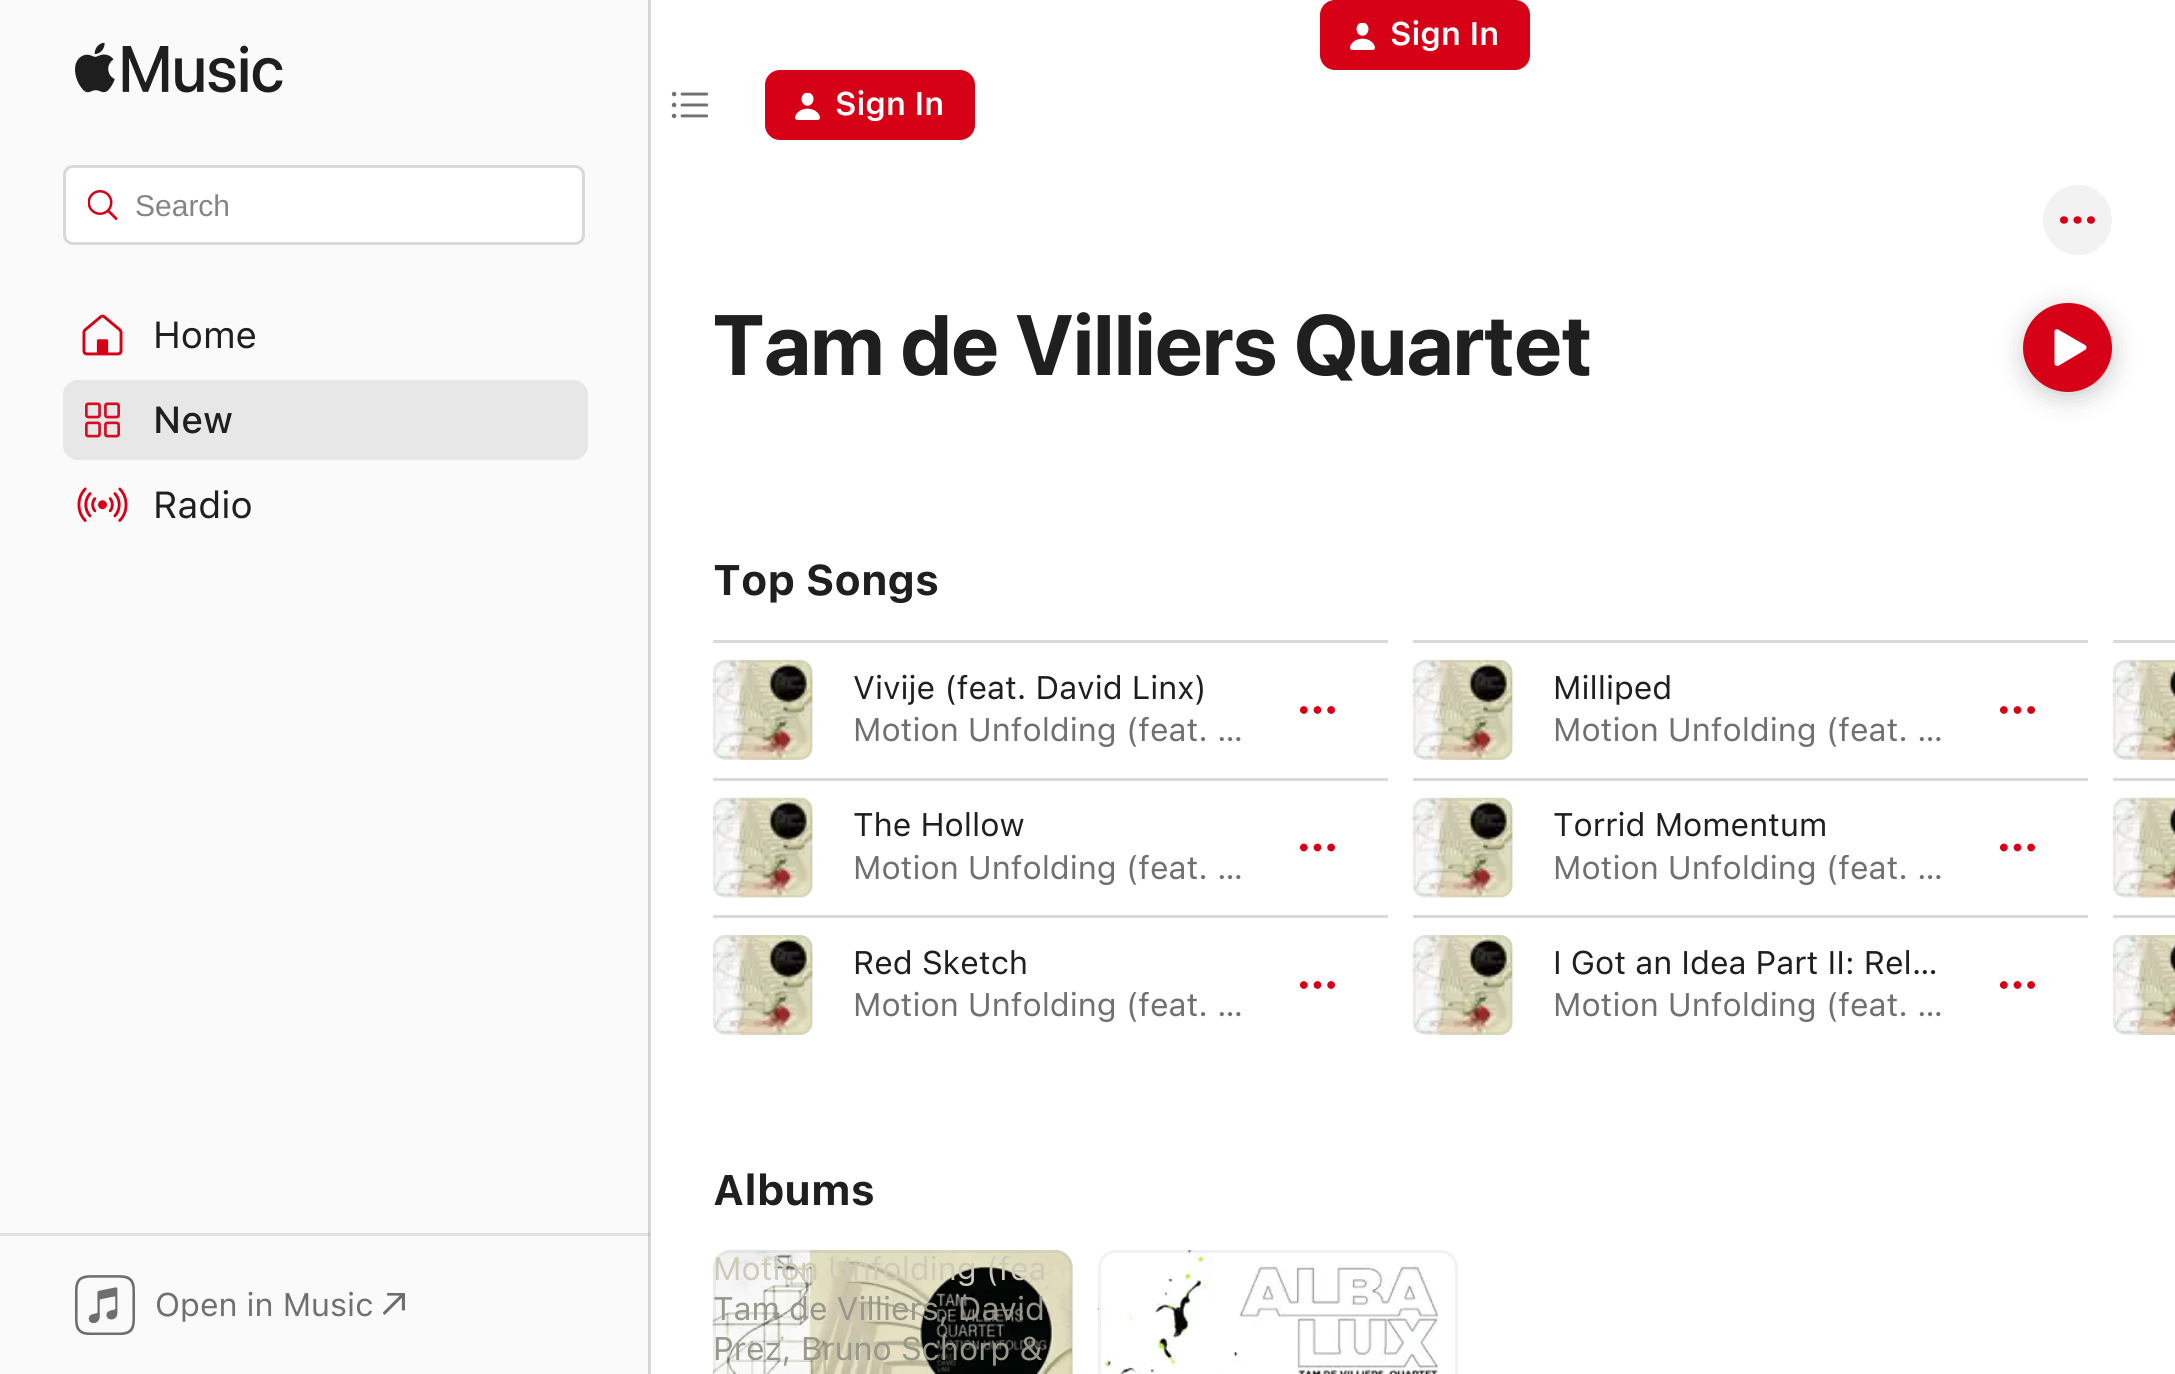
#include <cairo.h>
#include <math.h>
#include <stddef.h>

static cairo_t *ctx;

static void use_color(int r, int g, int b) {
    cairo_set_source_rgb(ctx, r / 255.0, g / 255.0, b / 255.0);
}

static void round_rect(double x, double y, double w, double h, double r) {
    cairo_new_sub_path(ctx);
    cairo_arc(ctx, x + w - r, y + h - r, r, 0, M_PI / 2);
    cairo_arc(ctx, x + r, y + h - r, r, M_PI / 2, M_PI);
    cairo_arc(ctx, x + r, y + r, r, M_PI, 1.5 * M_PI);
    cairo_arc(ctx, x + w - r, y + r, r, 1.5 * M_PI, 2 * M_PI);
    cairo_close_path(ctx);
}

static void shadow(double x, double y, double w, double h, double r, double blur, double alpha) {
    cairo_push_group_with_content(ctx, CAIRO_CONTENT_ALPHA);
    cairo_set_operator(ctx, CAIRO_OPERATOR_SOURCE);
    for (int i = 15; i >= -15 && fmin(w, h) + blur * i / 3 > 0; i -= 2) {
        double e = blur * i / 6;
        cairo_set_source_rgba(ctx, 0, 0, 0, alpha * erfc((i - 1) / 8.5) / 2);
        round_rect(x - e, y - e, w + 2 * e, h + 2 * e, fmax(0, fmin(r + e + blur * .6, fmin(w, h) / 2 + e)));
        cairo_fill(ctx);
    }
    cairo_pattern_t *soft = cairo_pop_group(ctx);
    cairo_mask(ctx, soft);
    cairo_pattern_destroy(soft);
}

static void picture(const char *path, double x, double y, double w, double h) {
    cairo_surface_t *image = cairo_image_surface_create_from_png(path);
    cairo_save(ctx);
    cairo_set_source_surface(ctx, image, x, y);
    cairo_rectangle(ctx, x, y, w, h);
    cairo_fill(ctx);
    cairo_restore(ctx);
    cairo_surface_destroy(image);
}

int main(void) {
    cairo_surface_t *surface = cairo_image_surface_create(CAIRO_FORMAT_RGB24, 2175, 1374);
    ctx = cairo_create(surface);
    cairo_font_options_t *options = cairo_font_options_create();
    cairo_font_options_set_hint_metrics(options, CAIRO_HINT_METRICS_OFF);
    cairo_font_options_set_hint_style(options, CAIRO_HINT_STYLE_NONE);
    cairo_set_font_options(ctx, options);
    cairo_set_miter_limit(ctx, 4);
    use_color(255, 255, 255);
    cairo_paint(ctx);
    use_color(217, 217, 217);
    cairo_rectangle(ctx, 650, 0, 1, 1374);
    cairo_fill(ctx);
    use_color(214, 0, 23);
    round_rect(1320, 0, 210, 70, 15);
    cairo_fill(ctx);
    picture("img1.png", 1350, 23, 25, 27);
    cairo_select_font_face(ctx, "SF SemiBold", CAIRO_FONT_SLANT_NORMAL, CAIRO_FONT_WEIGHT_NORMAL);
    cairo_set_font_size(ctx, 32.5);
    use_color(255, 255, 255);
    cairo_move_to(ctx, 1390, 45);
    cairo_show_text(ctx, "Sign In");
    picture("img2.png", 671, 91, 38, 28);
    use_color(214, 0, 23);
    round_rect(765, 70, 210, 70, 15);
    cairo_fill(ctx);
    picture("img1.png", 795, 93, 25, 27);
    use_color(255, 255, 255);
    cairo_move_to(ctx, 835, 115);
    cairo_show_text(ctx, "Sign In");
    use_color(250, 250, 250);
    cairo_rectangle(ctx, 0, 0, 648, 1374);
    cairo_fill(ctx);
    use_color(225, 225, 225);
    cairo_rectangle(ctx, 0, 1233, 650, 3);
    cairo_fill(ctx);
    use_color(213, 213, 213);
    cairo_rectangle(ctx, 648, 0, 2, 1374);
    cairo_fill(ctx);
    use_color(192, 192, 192);
    cairo_rectangle(ctx, 648, 1233, 2, 3);
    cairo_fill(ctx);
    picture("img3.png", 75, 43, 208, 50);
    use_color(255, 255, 255);
    round_rect(64.5, 166.5, 519, 77, 8.5);
    cairo_fill_preserve(ctx);
    use_color(217, 217, 217);
    cairo_set_line_width(ctx, 3);
    cairo_stroke(ctx);
    picture("img4.png", 88, 190, 30, 30);
    cairo_select_font_face(ctx, "Liberation Sans", CAIRO_FONT_SLANT_NORMAL, CAIRO_FONT_WEIGHT_NORMAL);
    cairo_set_font_size(ctx, 30);
    use_color(133, 133, 133);
    cairo_move_to(ctx, 135, 216);
    cairo_show_text(ctx, "Search");
    picture("img5.png", 82, 314, 41, 42);
    cairo_select_font_face(ctx, "SF", CAIRO_FONT_SLANT_NORMAL, CAIRO_FONT_WEIGHT_NORMAL);
    cairo_set_font_size(ctx, 37.5);
    use_color(31, 31, 31);
    cairo_move_to(ctx, 153, 348);
    cairo_show_text(ctx, "Home");
    use_color(231, 231, 232);
    round_rect(63, 380, 525, 80, 15);
    cairo_fill(ctx);
    picture("img6.png", 85, 402, 35, 36);
    cairo_select_font_face(ctx, "SF Medium", CAIRO_FONT_SLANT_NORMAL, CAIRO_FONT_WEIGHT_NORMAL);
    use_color(31, 31, 31);
    cairo_move_to(ctx, 153, 433);
    cairo_show_text(ctx, "New");
    picture("img7.png", 77, 487, 51, 35);
    cairo_select_font_face(ctx, "SF", CAIRO_FONT_SLANT_NORMAL, CAIRO_FONT_WEIGHT_NORMAL);
    cairo_move_to(ctx, 153, 518);
    cairo_show_text(ctx, "Radio");
    picture("img8.png", 75, 1275, 60, 60);
    cairo_set_font_size(ctx, 32.5);
    use_color(112, 112, 112);
    cairo_move_to(ctx, 155, 1316);
    cairo_show_text(ctx, "Open in Music");
    picture("img9.png", 383, 1293, 22, 22);
    use_color(242, 242, 242);
    cairo_new_path(ctx);
    cairo_move_to(ctx, 2112, 220);
    cairo_curve_to(ctx, 2112, 201, 2097, 185, 2078, 185);
    cairo_curve_to(ctx, 2059, 185, 2043, 201, 2043, 220);
    cairo_curve_to(ctx, 2043, 239, 2059, 255, 2078, 255);
    cairo_curve_to(ctx, 2097, 255, 2112, 239, 2112, 220);
    cairo_close_path(ctx);
    cairo_fill(ctx);
    use_color(214, 0, 23);
    cairo_new_path(ctx);
    cairo_move_to(ctx, 2068, 220);
    cairo_curve_to(ctx, 2068, 215, 2060, 215, 2060, 220);
    cairo_curve_to(ctx, 2060, 225, 2068, 225, 2068, 220);
    cairo_close_path(ctx);
    cairo_move_to(ctx, 2081.5, 220);
    cairo_curve_to(ctx, 2081.5, 215, 2073.5, 215, 2073.5, 220);
    cairo_curve_to(ctx, 2073.5, 225, 2081.5, 225, 2081.5, 220);
    cairo_close_path(ctx);
    cairo_move_to(ctx, 2095, 220);
    cairo_curve_to(ctx, 2095, 215, 2087, 215, 2087, 220);
    cairo_curve_to(ctx, 2087, 225, 2095, 225, 2095, 220);
    cairo_close_path(ctx);
    cairo_fill(ctx);
    cairo_select_font_face(ctx, "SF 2", CAIRO_FONT_SLANT_NORMAL, CAIRO_FONT_WEIGHT_BOLD);
    cairo_set_font_size(ctx, 85);
    use_color(31, 31, 31);
    cairo_move_to(ctx, 713, 375);
    cairo_show_text(ctx, "Tam de Villiers Quartet");
    use_color(0, 0, 0);
    shadow(2023, 308, 90, 90, 45, 12.5, 0.2);
    use_color(214, 0, 23);
    cairo_new_path(ctx);
    cairo_move_to(ctx, 2068, 392);
    cairo_curve_to(ctx, 2043, 392, 2023, 372, 2023, 348);
    cairo_curve_to(ctx, 2023, 323, 2043, 303, 2068, 303);
    cairo_curve_to(ctx, 2078, 303, 2087, 306, 2094, 311);
    cairo_curve_to(ctx, 2105, 320, 2112, 333, 2112, 348);
    cairo_curve_to(ctx, 2112, 372, 2092, 392, 2068, 392);
    cairo_close_path(ctx);
    cairo_fill(ctx);
    use_color(255, 255, 255);
    cairo_new_path(ctx);
    cairo_move_to(ctx, 2059, 365.5);
    cairo_curve_to(ctx, 2057, 366.5, 2054.5, 365.5, 2054.5, 363.5);
    cairo_line_to(ctx, 2054.5, 331.5);
    cairo_curve_to(ctx, 2054.5, 329.5, 2057, 328.5, 2059, 330);
    cairo_line_to(ctx, 2085, 345);
    cairo_curve_to(ctx, 2086, 345.5, 2086.5, 346.5, 2086.5, 347.5);
    cairo_curve_to(ctx, 2086.5, 348.5, 2086, 349.5, 2085, 350);
    cairo_close_path(ctx);
    cairo_fill(ctx);
    cairo_select_font_face(ctx, "SF", CAIRO_FONT_SLANT_NORMAL, CAIRO_FONT_WEIGHT_BOLD);
    cairo_set_font_size(ctx, 42.5);
    use_color(31, 31, 31);
    cairo_move_to(ctx, 713, 595);
    cairo_show_text(ctx, "Top Songs");
    use_color(217, 217, 217);
    cairo_rectangle(ctx, 713, 640, 675, 3);
    cairo_fill(ctx);
    picture("img10.png", 712, 660, 101, 100);
    round_rect(714.5, 661.5, 97, 97, 11.5);
    cairo_set_source_rgba(ctx, 0.502, 0.502, 0.502, 0.1);
    cairo_stroke(ctx);
    cairo_select_font_face(ctx, "SF", CAIRO_FONT_SLANT_NORMAL, CAIRO_FONT_WEIGHT_NORMAL);
    cairo_set_font_size(ctx, 32.5);
    use_color(31, 31, 31);
    cairo_move_to(ctx, 853, 699);
    cairo_show_text(ctx, "Vivije (feat. David Linx)");
    use_color(112, 112, 112);
    cairo_move_to(ctx, 853, 741);
    cairo_show_text(ctx, "Motion Unfolding (feat. …");
    picture("img11.png", 1300, 706, 35, 8);
    use_color(217, 217, 217);
    cairo_rectangle(ctx, 1413, 640, 675, 3);
    cairo_fill(ctx);
    picture("img12.png", 1412, 660, 101, 100);
    round_rect(1414.5, 661.5, 97, 97, 11.5);
    cairo_set_source_rgba(ctx, 0.502, 0.502, 0.502, 0.1);
    cairo_stroke(ctx);
    use_color(31, 31, 31);
    cairo_move_to(ctx, 1553, 699);
    cairo_show_text(ctx, "Milliped");
    use_color(112, 112, 112);
    cairo_move_to(ctx, 1553, 741);
    cairo_show_text(ctx, "Motion Unfolding (feat. …");
    picture("img11.png", 2000, 706, 35, 8);
    use_color(217, 217, 217);
    cairo_rectangle(ctx, 2113, 640, 62, 3);
    cairo_fill(ctx);
    picture("img13.png", 2112, 660, 63, 100);
    round_rect(2114.5, 661.5, 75, 97, 11.5);
    cairo_set_source_rgba(ctx, 0.502, 0.502, 0.502, 0.1);
    cairo_stroke(ctx);
    use_color(217, 217, 217);
    cairo_rectangle(ctx, 713, 778, 675, 3);
    cairo_fill(ctx);
    picture("img14.png", 712, 797, 101, 101);
    round_rect(714.5, 799.5, 97, 97, 11.5);
    cairo_set_source_rgba(ctx, 0.502, 0.502, 0.502, 0.1);
    cairo_stroke(ctx);
    use_color(31, 31, 31);
    cairo_move_to(ctx, 853, 836);
    cairo_show_text(ctx, "The Hollow");
    use_color(112, 112, 112);
    cairo_move_to(ctx, 853, 879);
    cairo_show_text(ctx, "Motion Unfolding (feat. …");
    picture("img15.png", 1300, 843, 35, 9);
    use_color(217, 217, 217);
    cairo_rectangle(ctx, 1413, 778, 675, 3);
    cairo_fill(ctx);
    picture("img16.png", 1412, 797, 101, 101);
    round_rect(1414.5, 799.5, 97, 97, 11.5);
    cairo_set_source_rgba(ctx, 0.502, 0.502, 0.502, 0.1);
    cairo_stroke(ctx);
    use_color(31, 31, 31);
    cairo_move_to(ctx, 1553, 836);
    cairo_show_text(ctx, "Torrid Momentum");
    use_color(112, 112, 112);
    cairo_move_to(ctx, 1553, 879);
    cairo_show_text(ctx, "Motion Unfolding (feat. …");
    picture("img15.png", 2000, 843, 35, 9);
    use_color(217, 217, 217);
    cairo_rectangle(ctx, 2113, 778, 62, 3);
    cairo_fill(ctx);
    picture("img17.png", 2112, 797, 63, 101);
    round_rect(2114.5, 799.5, 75, 97, 11.5);
    cairo_set_source_rgba(ctx, 0.502, 0.502, 0.502, 0.1);
    cairo_stroke(ctx);
    use_color(217, 217, 217);
    cairo_rectangle(ctx, 713, 915, 675, 3);
    cairo_fill(ctx);
    picture("img10.png", 712, 935, 101, 100);
    round_rect(714.5, 936.5, 97, 97, 11.5);
    cairo_set_source_rgba(ctx, 0.502, 0.502, 0.502, 0.1);
    cairo_stroke(ctx);
    use_color(31, 31, 31);
    cairo_move_to(ctx, 853, 974);
    cairo_show_text(ctx, "Red Sketch");
    use_color(112, 112, 112);
    cairo_move_to(ctx, 853, 1016);
    cairo_show_text(ctx, "Motion Unfolding (feat. …");
    picture("img11.png", 1300, 981, 35, 8);
    use_color(217, 217, 217);
    cairo_rectangle(ctx, 1413, 915, 675, 3);
    cairo_fill(ctx);
    picture("img12.png", 1412, 935, 101, 100);
    round_rect(1414.5, 936.5, 97, 97, 11.5);
    cairo_set_source_rgba(ctx, 0.502, 0.502, 0.502, 0.1);
    cairo_stroke(ctx);
    use_color(31, 31, 31);
    cairo_move_to(ctx, 1553, 974);
    cairo_show_text(ctx, "I Got an Idea Part II: Rel…");
    use_color(112, 112, 112);
    cairo_move_to(ctx, 1553, 1016);
    cairo_show_text(ctx, "Motion Unfolding (feat. …");
    picture("img11.png", 2000, 981, 35, 8);
    use_color(217, 217, 217);
    cairo_rectangle(ctx, 2113, 915, 62, 3);
    cairo_fill(ctx);
    picture("img13.png", 2112, 935, 63, 100);
    round_rect(2114.5, 936.5, 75, 97, 11.5);
    cairo_set_source_rgba(ctx, 0.502, 0.502, 0.502, 0.1);
    cairo_stroke(ctx);
    cairo_select_font_face(ctx, "SF", CAIRO_FONT_SLANT_NORMAL, CAIRO_FONT_WEIGHT_BOLD);
    cairo_set_font_size(ctx, 42.5);
    use_color(31, 31, 31);
    cairo_move_to(ctx, 713, 1205);
    cairo_show_text(ctx, "Albums");
    use_color(241, 241, 241);
    cairo_new_path(ctx);
    cairo_move_to(ctx, 731, 1250);
    cairo_line_to(ctx, 1055, 1250);
    cairo_curve_to(ctx, 1065, 1250, 1073, 1258, 1073, 1268);
    cairo_line_to(ctx, 1073, 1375);
    cairo_line_to(ctx, 713, 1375);
    cairo_line_to(ctx, 713, 1268);
    cairo_curve_to(ctx, 713, 1258, 721, 1250, 731, 1250);
    cairo_close_path(ctx);
    cairo_fill(ctx);
    picture("img18.png", 712, 1250, 361, 124);
    round_rect(714.5, 1251.5, 357, 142, 16.5);
    cairo_set_source_rgba(ctx, 0.502, 0.502, 0.502, 0.1);
    cairo_stroke(ctx);
    cairo_select_font_face(ctx, "SF", CAIRO_FONT_SLANT_NORMAL, CAIRO_FONT_WEIGHT_NORMAL);
    cairo_set_font_size(ctx, 32.5);
    use_color(205, 202, 183);
    cairo_move_to(ctx, 713, 1280);
    cairo_show_text(ctx, "Motion Unfolding (fea");
    use_color(152, 151, 139);
    cairo_move_to(ctx, 713, 1320);
    cairo_show_text(ctx, "Tam de Villiers, David");
    cairo_move_to(ctx, 713, 1360);
    cairo_show_text(ctx, "Prez, Bruno Schorp &");
    picture("img19.png", 1097, 1250, 342, 124);
    round_rect(1099.5, 1251.5, 357, 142, 16.5);
    cairo_set_source_rgba(ctx, 0.502, 0.502, 0.502, 0.1);
    cairo_stroke(ctx);
    cairo_surface_write_to_png(surface, "result.png");
    cairo_font_options_destroy(options);
    cairo_destroy(ctx);
    cairo_surface_destroy(surface);
    return 0;
}
